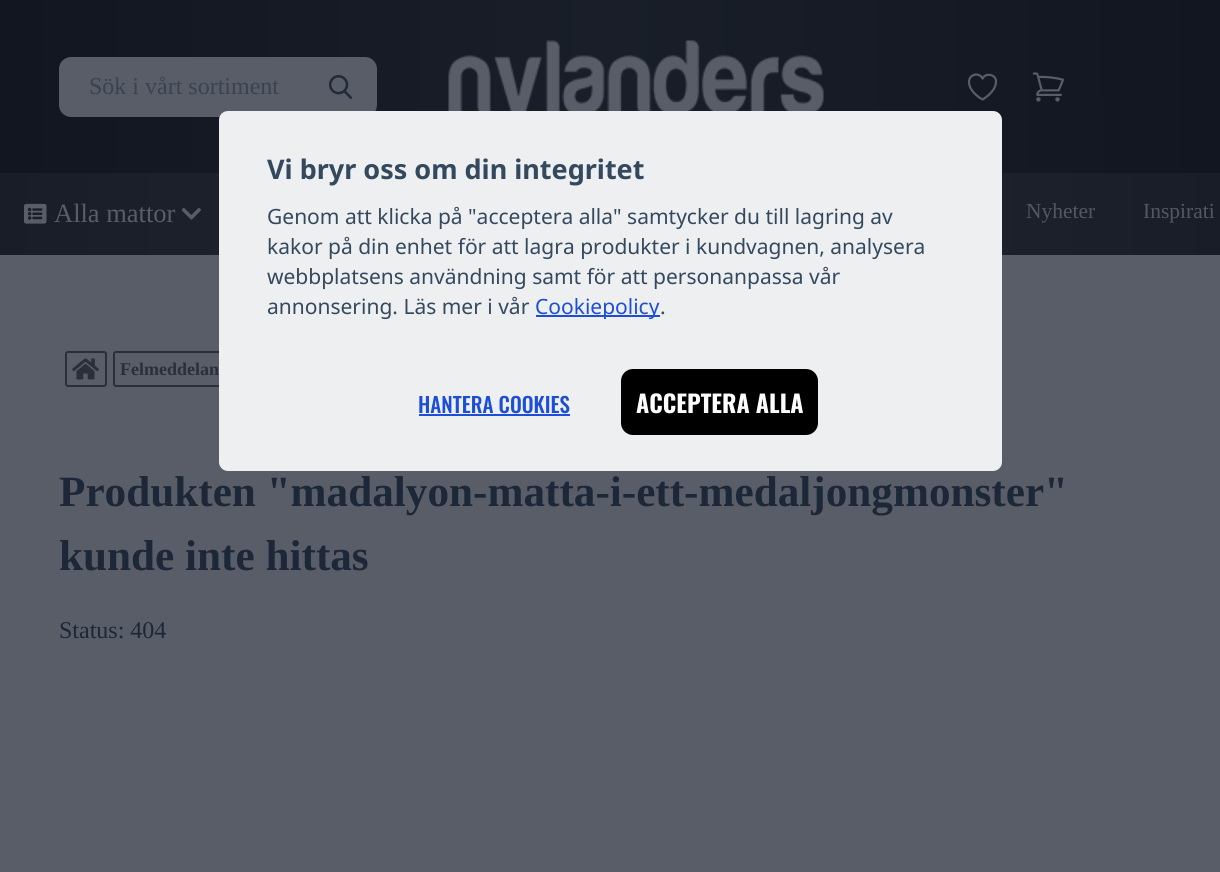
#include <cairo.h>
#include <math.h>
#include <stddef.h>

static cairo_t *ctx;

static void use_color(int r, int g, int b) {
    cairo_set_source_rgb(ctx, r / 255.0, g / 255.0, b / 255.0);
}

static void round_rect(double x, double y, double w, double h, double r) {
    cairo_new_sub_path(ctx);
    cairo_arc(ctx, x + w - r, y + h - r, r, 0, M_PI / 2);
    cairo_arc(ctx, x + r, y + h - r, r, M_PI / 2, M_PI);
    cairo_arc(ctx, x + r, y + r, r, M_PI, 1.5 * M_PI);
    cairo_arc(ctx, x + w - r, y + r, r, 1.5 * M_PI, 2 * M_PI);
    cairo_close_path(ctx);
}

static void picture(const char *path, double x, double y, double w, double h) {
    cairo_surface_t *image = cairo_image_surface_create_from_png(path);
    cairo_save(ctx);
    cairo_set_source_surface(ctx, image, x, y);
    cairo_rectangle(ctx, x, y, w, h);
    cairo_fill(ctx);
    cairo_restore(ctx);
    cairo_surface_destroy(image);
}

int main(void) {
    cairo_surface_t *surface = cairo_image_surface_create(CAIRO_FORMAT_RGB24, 1220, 872);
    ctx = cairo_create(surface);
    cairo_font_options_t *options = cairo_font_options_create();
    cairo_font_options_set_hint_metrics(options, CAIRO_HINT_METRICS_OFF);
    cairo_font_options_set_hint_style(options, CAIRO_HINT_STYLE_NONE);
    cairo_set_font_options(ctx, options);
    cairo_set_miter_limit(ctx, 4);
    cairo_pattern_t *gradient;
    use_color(88, 93, 104);
    cairo_paint(ctx);
    gradient = cairo_pattern_create_linear(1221, 127, 0, 128);
    cairo_pattern_add_color_stop_rgba(gradient, 0, 0.067, 0.086, 0.125, 1);
    cairo_pattern_add_color_stop_rgba(gradient, 0.5, 0.098, 0.118, 0.157, 1);
    cairo_pattern_add_color_stop_rgba(gradient, 1, 0.067, 0.086, 0.125, 1);
    cairo_set_source(ctx, gradient);
    cairo_pattern_destroy(gradient);
    cairo_rectangle(ctx, 0, 0, 1220, 173);
    cairo_fill(ctx);
    use_color(88, 93, 104);
    round_rect(59, 57, 318, 60, 12);
    cairo_fill(ctx);
    cairo_select_font_face(ctx, "Liberation Serif", CAIRO_FONT_SLANT_NORMAL, CAIRO_FONT_WEIGHT_NORMAL);
    cairo_set_font_size(ctx, 24);
    use_color(59, 66, 80);
    cairo_move_to(ctx, 89, 94);
    cairo_show_text(ctx, "Sök i vårt sortiment");
    picture("img1.png", 329, 75, 24, 24);
    picture("img2.png", 448, 40, 376, 71);
    cairo_new_path(ctx);
    cairo_move_to(ctx, 996, 81.5);
    cairo_curve_to(ctx, 996, 74, 985.5, 72.5, 982.5, 78.5);
    cairo_curve_to(ctx, 979, 70.5, 963.5, 75, 971, 89);
    cairo_curve_to(ctx, 973.5, 93, 978, 97, 982.5, 99.5);
    cairo_curve_to(ctx, 982.5, 99.5, 996, 92, 996, 81.5);
    cairo_close_path(ctx);
    use_color(88, 93, 104);
    cairo_set_line_width(ctx, 2.2);
    cairo_set_line_cap(ctx, CAIRO_LINE_CAP_ROUND);
    cairo_set_line_join(ctx, CAIRO_LINE_JOIN_ROUND);
    cairo_stroke(ctx);
    picture("img3.png", 1032, 72, 32, 30);
    gradient = cairo_pattern_create_linear(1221, 214, 0, 214);
    cairo_pattern_add_color_stop_rgba(gradient, 0, 0.098, 0.114, 0.157, 1);
    cairo_pattern_add_color_stop_rgba(gradient, 0.5, 0.133, 0.153, 0.192, 1);
    cairo_pattern_add_color_stop_rgba(gradient, 1, 0.098, 0.114, 0.157, 1);
    cairo_set_source(ctx, gradient);
    cairo_pattern_destroy(gradient);
    cairo_rectangle(ctx, 0, 173, 1220, 82);
    cairo_fill(ctx);
    picture("img4.png", 24, 203, 23, 21);
    cairo_set_font_size(ctx, 26.5);
    use_color(88, 93, 104);
    cairo_move_to(ctx, 54, 222);
    cairo_show_text(ctx, "Alla mattor");
    picture("img5.png", 181, 207, 20, 13);
    cairo_set_font_size(ctx, 21.5);
    use_color(82, 87, 98);
    cairo_move_to(ctx, 1026, 218);
    cairo_show_text(ctx, "Nyheter");
    cairo_move_to(ctx, 1143, 218);
    cairo_show_text(ctx, "Inspirati");
    round_rect(66, 352, 40, 34, 2);
    use_color(43, 47, 58);
    cairo_set_line_width(ctx, 2);
    cairo_set_line_cap(ctx, CAIRO_LINE_CAP_BUTT);
    cairo_set_line_join(ctx, CAIRO_LINE_JOIN_MITER);
    cairo_stroke(ctx);
    picture("img6.png", 72, 358, 27, 22);
    round_rect(114, 352, 130, 34, 2);
    cairo_stroke(ctx);
    cairo_select_font_face(ctx, "Liberation Serif", CAIRO_FONT_SLANT_NORMAL, CAIRO_FONT_WEIGHT_BOLD);
    cairo_set_font_size(ctx, 18);
    cairo_move_to(ctx, 120, 375);
    cairo_show_text(ctx, "Felmeddelan");
    cairo_set_font_size(ctx, 43.2);
    use_color(28, 39, 56);
    cairo_move_to(ctx, 59, 506);
    cairo_show_text(ctx, "Produkten \"madalyon-matta-i-ett-medaljongmonster\"");
    cairo_move_to(ctx, 59, 570);
    cairo_show_text(ctx, "kunde inte hittas");
    cairo_select_font_face(ctx, "Liberation Serif", CAIRO_FONT_SLANT_NORMAL, CAIRO_FONT_WEIGHT_NORMAL);
    cairo_set_font_size(ctx, 24);
    cairo_move_to(ctx, 59, 638);
    cairo_show_text(ctx, "Status: 404");
    use_color(237, 239, 241);
    round_rect(219, 111, 783, 360, 9);
    cairo_fill(ctx);
    cairo_select_font_face(ctx, "Noto Sans", CAIRO_FONT_SLANT_NORMAL, CAIRO_FONT_WEIGHT_BOLD);
    cairo_set_font_size(ctx, 27);
    use_color(52, 73, 94);
    cairo_move_to(ctx, 267, 179);
    cairo_show_text(ctx, "Vi bryr oss om din integritet");
    cairo_select_font_face(ctx, "Noto Sans", CAIRO_FONT_SLANT_NORMAL, CAIRO_FONT_WEIGHT_NORMAL);
    cairo_set_font_size(ctx, 21);
    cairo_move_to(ctx, 267, 224);
    cairo_show_text(ctx, "Genom att klicka på \"acceptera alla\" samtycker du till lagring av");
    cairo_move_to(ctx, 267, 254);
    cairo_show_text(ctx, "kakor på din enhet för att lagra produkter i kundvagnen, analysera");
    cairo_move_to(ctx, 267, 284);
    cairo_show_text(ctx, "webbplatsens användning samt för att personanpassa vår");
    cairo_move_to(ctx, 267, 314);
    cairo_show_text(ctx, "annonsering. Läs mer i vår");
    use_color(29, 78, 216);
    cairo_rectangle(ctx, 536, 315, 124, 2);
    cairo_fill(ctx);
    cairo_move_to(ctx, 535, 314);
    cairo_show_text(ctx, "Cookiepolicy");
    use_color(52, 73, 94);
    cairo_move_to(ctx, 660, 314);
    cairo_show_text(ctx, ".");
    cairo_select_font_face(ctx, "Oswald Medium", CAIRO_FONT_SLANT_NORMAL, CAIRO_FONT_WEIGHT_NORMAL);
    use_color(29, 78, 216);
    cairo_move_to(ctx, 418, 413);
    cairo_show_text(ctx, "HANTERA COOKIES");
    cairo_rectangle(ctx, 419, 414, 151, 2);
    cairo_fill(ctx);
    use_color(0, 0, 0);
    round_rect(621, 369, 197, 66, 12);
    cairo_fill(ctx);
    cairo_select_font_face(ctx, "Oswald", CAIRO_FONT_SLANT_NORMAL, CAIRO_FONT_WEIGHT_BOLD);
    cairo_set_font_size(ctx, 24);
    use_color(255, 255, 255);
    cairo_move_to(ctx, 636, 413);
    cairo_show_text(ctx, "ACCEPTERA ALLA");
    cairo_surface_write_to_png(surface, "result.png");
    cairo_font_options_destroy(options);
    cairo_destroy(ctx);
    cairo_surface_destroy(surface);
    return 0;
}
